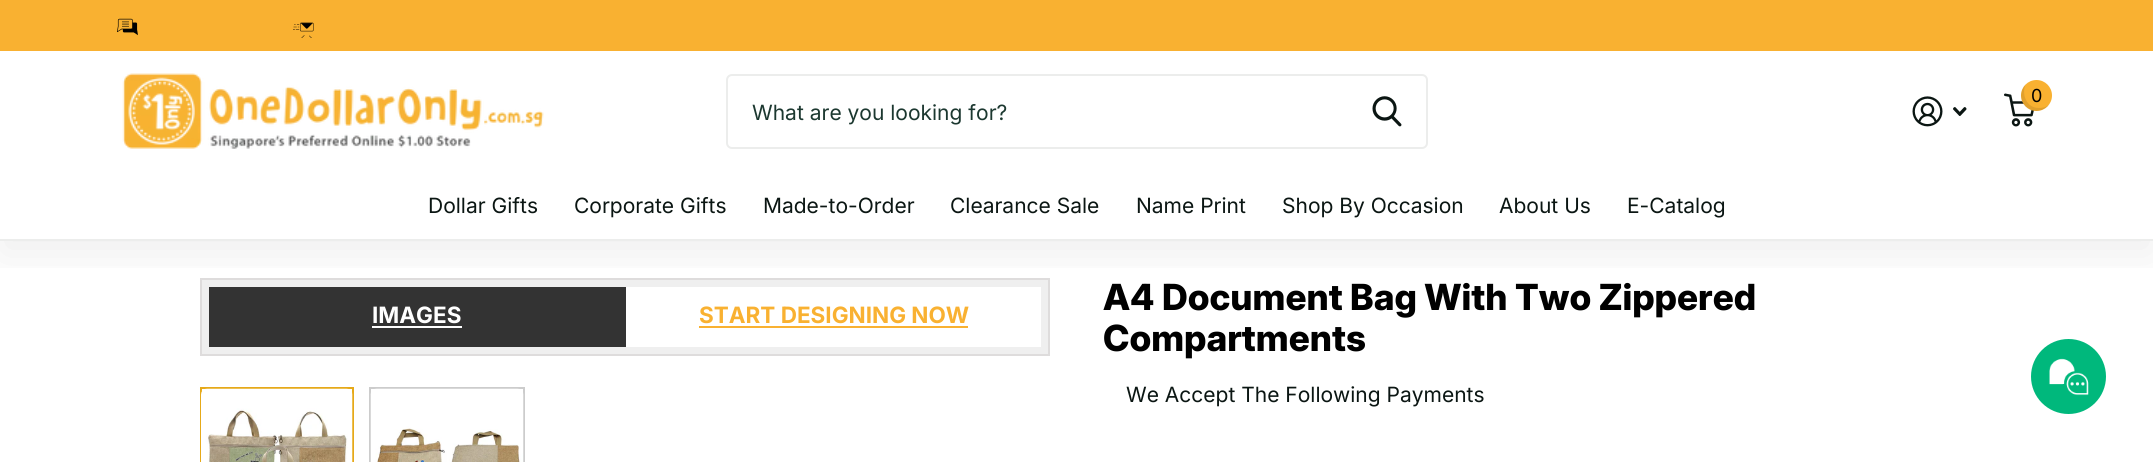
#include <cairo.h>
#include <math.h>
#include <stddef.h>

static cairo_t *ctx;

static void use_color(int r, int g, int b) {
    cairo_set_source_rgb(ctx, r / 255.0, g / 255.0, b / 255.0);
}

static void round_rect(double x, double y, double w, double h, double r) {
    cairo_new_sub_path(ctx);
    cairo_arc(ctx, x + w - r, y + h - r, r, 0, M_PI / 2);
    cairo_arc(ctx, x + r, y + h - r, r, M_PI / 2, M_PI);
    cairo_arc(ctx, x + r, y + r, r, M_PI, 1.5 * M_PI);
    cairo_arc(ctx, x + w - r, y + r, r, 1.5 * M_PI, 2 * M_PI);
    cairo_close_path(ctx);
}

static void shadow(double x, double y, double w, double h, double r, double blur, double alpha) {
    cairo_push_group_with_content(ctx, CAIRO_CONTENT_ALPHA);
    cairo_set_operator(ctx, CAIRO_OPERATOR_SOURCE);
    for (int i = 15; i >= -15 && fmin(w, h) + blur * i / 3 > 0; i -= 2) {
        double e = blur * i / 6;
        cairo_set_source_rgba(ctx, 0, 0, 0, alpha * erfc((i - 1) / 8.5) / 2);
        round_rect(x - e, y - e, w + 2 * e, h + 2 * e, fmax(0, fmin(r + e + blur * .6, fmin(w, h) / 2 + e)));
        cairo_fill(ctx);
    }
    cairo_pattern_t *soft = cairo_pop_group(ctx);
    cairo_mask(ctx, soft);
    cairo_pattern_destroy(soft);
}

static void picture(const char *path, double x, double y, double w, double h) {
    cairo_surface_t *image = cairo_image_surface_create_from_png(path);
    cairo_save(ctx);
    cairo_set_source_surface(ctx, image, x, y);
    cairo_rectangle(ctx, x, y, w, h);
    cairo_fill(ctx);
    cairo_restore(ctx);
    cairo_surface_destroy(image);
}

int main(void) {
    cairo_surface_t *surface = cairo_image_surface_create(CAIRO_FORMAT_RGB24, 2153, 462);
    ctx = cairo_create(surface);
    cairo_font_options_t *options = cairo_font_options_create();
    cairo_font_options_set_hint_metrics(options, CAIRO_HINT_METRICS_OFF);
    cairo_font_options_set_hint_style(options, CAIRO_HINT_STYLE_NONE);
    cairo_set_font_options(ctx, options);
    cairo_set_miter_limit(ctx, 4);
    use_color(255, 255, 255);
    cairo_paint(ctx);
    use_color(239, 239, 239);
    cairo_rectangle(ctx, 201, 279, 848, 76);
    cairo_fill_preserve(ctx);
    use_color(222, 220, 220);
    cairo_stroke(ctx);
    use_color(51, 51, 51);
    cairo_rectangle(ctx, 209, 287, 417, 60);
    cairo_fill(ctx);
    use_color(255, 255, 255);
    cairo_rectangle(ctx, 372, 326, 90, 2);
    cairo_fill(ctx);
    cairo_rectangle(ctx, 626, 287, 415, 60);
    cairo_fill(ctx);
    use_color(249, 177, 49);
    cairo_rectangle(ctx, 699, 326, 269, 2);
    cairo_fill(ctx);
    cairo_save(ctx);
    cairo_rectangle(ctx, 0, 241, 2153, 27);
    cairo_clip(ctx);
    use_color(0, 0, 0);
    shadow(0, 14, 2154, 240, 0, 24, 0.07);
    cairo_restore(ctx);
    use_color(236, 237, 236);
    cairo_rectangle(ctx, 0, 239, 2153, 2);
    cairo_fill(ctx);
    use_color(249, 177, 49);
    cairo_rectangle(ctx, 0, 0, 2153, 51);
    cairo_fill(ctx);
    picture("img1.png", 117, 18, 21, 18);
    picture("img2.png", 293, 22, 21, 16);
    picture("img3.png", 122, 73, 422, 76);
    picture("img4.png", 1912, 96, 31, 31);
    picture("img5.png", 1953, 107, 14, 9);
    picture("img6.png", 2004, 93, 30, 34);
    cairo_arc(ctx, 2036.5, 95.5, 15.5, 0, 2 * M_PI);
    cairo_fill(ctx);
    cairo_set_source_rgba(ctx, 0, 0, 0, 0.1);
    cairo_new_path(ctx);
    cairo_move_to(ctx, 2049, 105);
    cairo_curve_to(ctx, 2046.5, 107, 2043, 108, 2039, 108);
    cairo_curve_to(ctx, 2026, 108, 2021.5, 94, 2025.5, 84.5);
    cairo_curve_to(ctx, 2019.5, 90.5, 2019.5, 100.5, 2025.5, 106.5);
    cairo_curve_to(ctx, 2032, 113, 2043.5, 112, 2049, 105);
    cairo_close_path(ctx);
    cairo_fill(ctx);
    cairo_select_font_face(ctx, "Inter", CAIRO_FONT_SLANT_NORMAL, CAIRO_FONT_WEIGHT_NORMAL);
    cairo_set_font_size(ctx, 18);
    use_color(0, 0, 0);
    cairo_move_to(ctx, 2031, 102);
    cairo_show_text(ctx, "0");
    round_rect(727, 75, 700, 73, 5);
    use_color(236, 237, 236);
    cairo_stroke(ctx);
    cairo_set_font_size(ctx, 21);
    use_color(28, 56, 48);
    cairo_move_to(ctx, 752, 120);
    cairo_show_text(ctx, "What are you looking for?");
    picture("img7.png", 1372, 96, 30, 31);
    use_color(11, 22, 19);
    cairo_move_to(ctx, 428, 213);
    cairo_show_text(ctx, "Dollar Gifts");
    cairo_move_to(ctx, 574, 213);
    cairo_show_text(ctx, "Corporate Gifts");
    cairo_move_to(ctx, 763, 213);
    cairo_show_text(ctx, "Made-to-Order");
    cairo_move_to(ctx, 950, 213);
    cairo_show_text(ctx, "Clearance Sale");
    cairo_move_to(ctx, 1136, 213);
    cairo_show_text(ctx, "Name Print");
    cairo_move_to(ctx, 1282, 213);
    cairo_show_text(ctx, "Shop By Occasion");
    cairo_move_to(ctx, 1499, 213);
    cairo_show_text(ctx, "About Us");
    cairo_move_to(ctx, 1627, 213);
    cairo_show_text(ctx, "E-Catalog");
    cairo_select_font_face(ctx, "Inter", CAIRO_FONT_SLANT_NORMAL, CAIRO_FONT_WEIGHT_BOLD);
    cairo_set_font_size(ctx, 22.5);
    use_color(255, 255, 255);
    cairo_move_to(ctx, 372, 323);
    cairo_show_text(ctx, "IMAGES");
    use_color(249, 177, 49);
    cairo_move_to(ctx, 699, 323);
    cairo_show_text(ctx, "START DESIGNING NOW");
    cairo_rectangle(ctx, 201, 388, 152, 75);
    use_color(230, 169, 25);
    cairo_stroke(ctx);
    picture("img8.png", 201, 388, 152, 74);
    cairo_rectangle(ctx, 370, 388, 154, 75);
    use_color(204, 204, 204);
    cairo_stroke(ctx);
    picture("img9.png", 370, 388, 154, 74);
    cairo_select_font_face(ctx, "Inter ExtraBold", CAIRO_FONT_SLANT_NORMAL, CAIRO_FONT_WEIGHT_NORMAL);
    cairo_set_font_size(ctx, 36);
    use_color(0, 0, 0);
    cairo_move_to(ctx, 1103, 310);
    cairo_show_text(ctx, "A4 Document Bag With Two Zippered");
    cairo_move_to(ctx, 1103, 351);
    cairo_show_text(ctx, "Compartments");
    cairo_select_font_face(ctx, "Inter", CAIRO_FONT_SLANT_NORMAL, CAIRO_FONT_WEIGHT_NORMAL);
    cairo_set_font_size(ctx, 21);
    use_color(11, 22, 19);
    cairo_move_to(ctx, 1126, 402);
    cairo_show_text(ctx, "We Accept The Following Payments");
    use_color(0, 184, 124);
    cairo_new_path(ctx);
    cairo_arc(ctx, 2068.5, 376.5, 37.5, 0, 2 * M_PI);
    cairo_fill(ctx);
    picture("img10.png", 2049, 358, 40, 38);
    cairo_surface_write_to_png(surface, "result.png");
    cairo_font_options_destroy(options);
    cairo_destroy(ctx);
    cairo_surface_destroy(surface);
    return 0;
}
